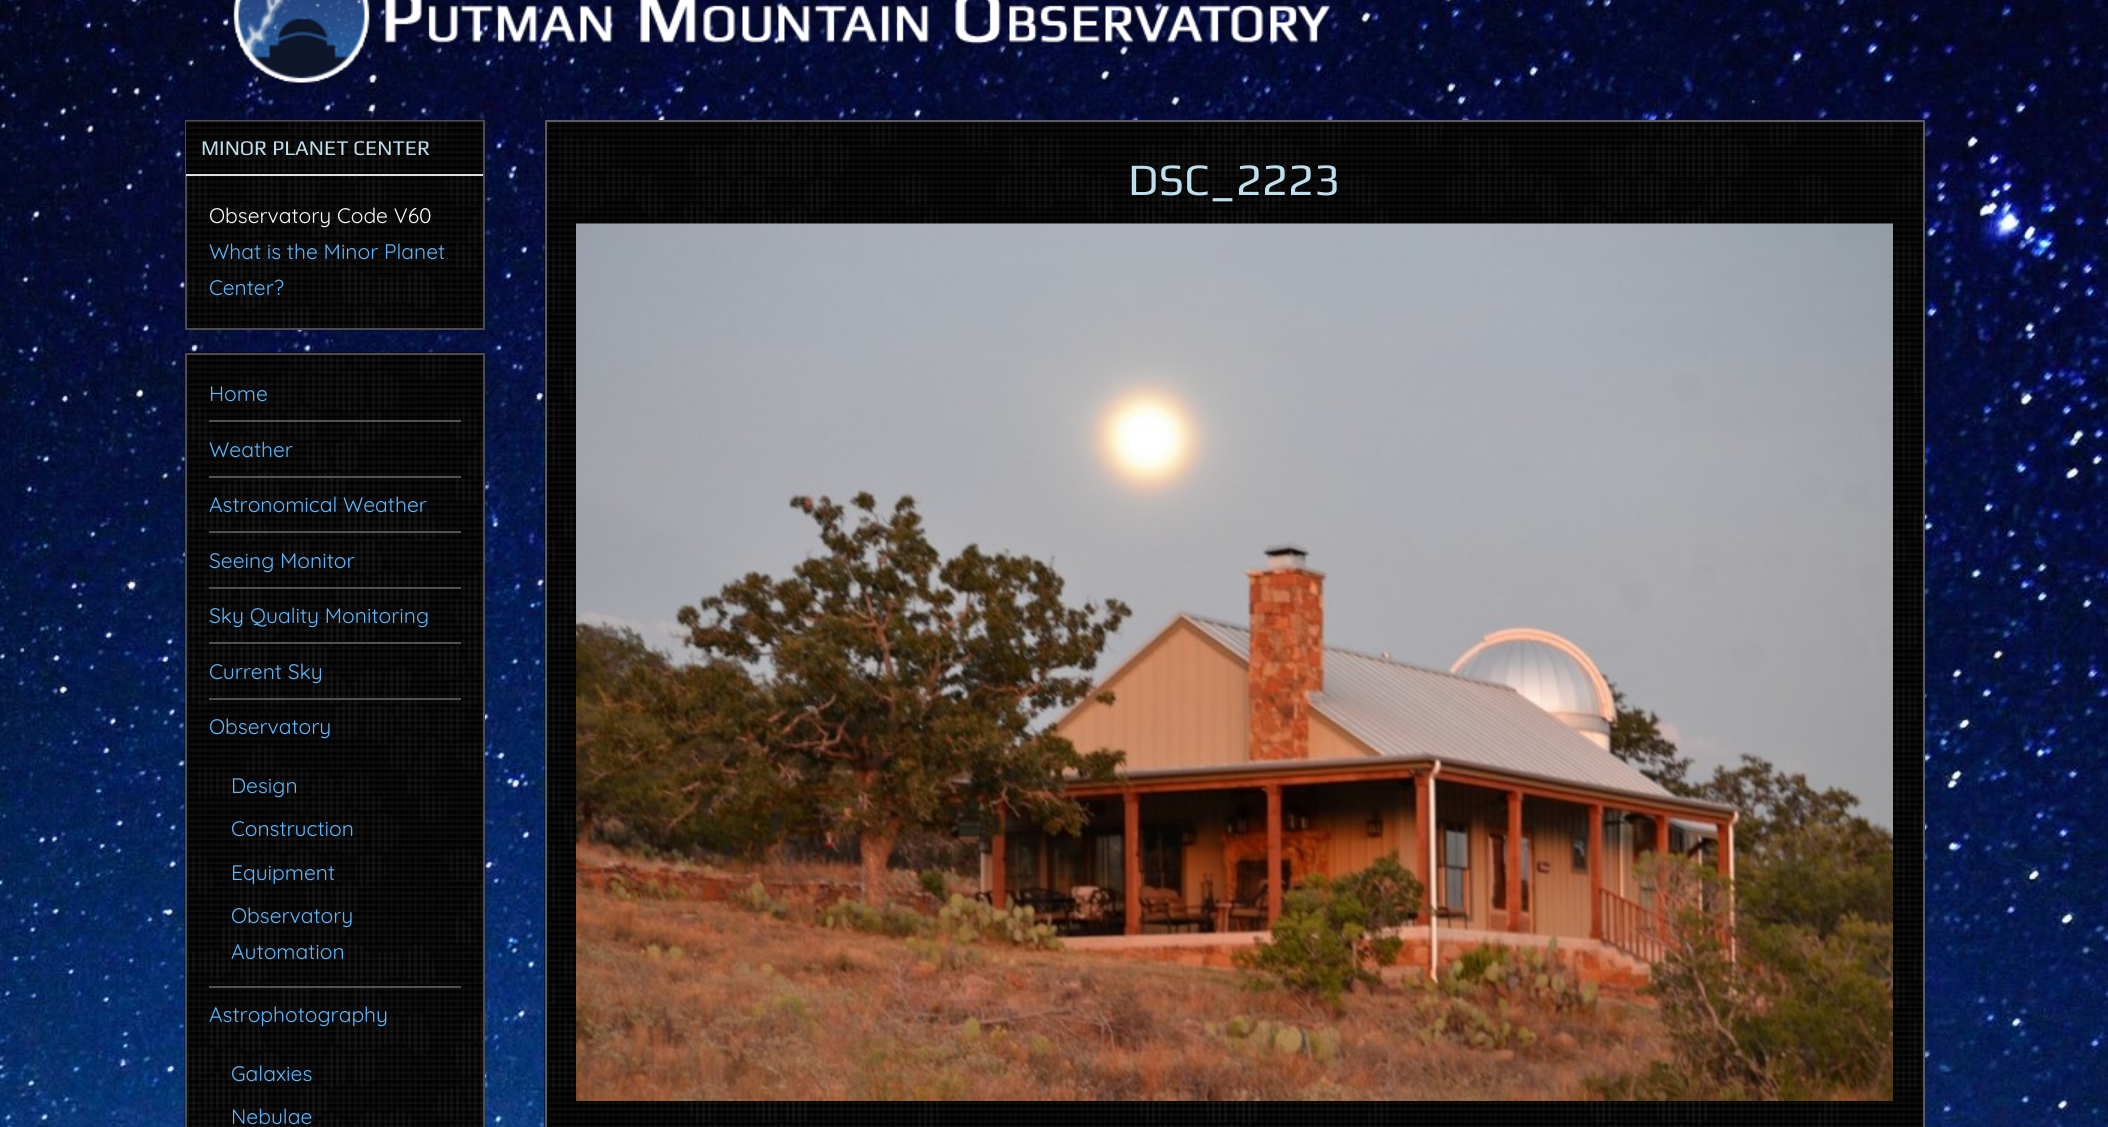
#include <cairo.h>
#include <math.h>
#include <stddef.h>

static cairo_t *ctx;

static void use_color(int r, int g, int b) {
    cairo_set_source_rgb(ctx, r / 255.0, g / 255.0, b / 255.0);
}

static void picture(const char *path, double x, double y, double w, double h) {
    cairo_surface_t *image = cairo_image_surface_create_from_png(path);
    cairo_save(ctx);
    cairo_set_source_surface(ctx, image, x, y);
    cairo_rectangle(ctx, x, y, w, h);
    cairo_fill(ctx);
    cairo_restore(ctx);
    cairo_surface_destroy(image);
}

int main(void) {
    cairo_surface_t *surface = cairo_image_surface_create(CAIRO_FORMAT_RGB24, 2108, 1127);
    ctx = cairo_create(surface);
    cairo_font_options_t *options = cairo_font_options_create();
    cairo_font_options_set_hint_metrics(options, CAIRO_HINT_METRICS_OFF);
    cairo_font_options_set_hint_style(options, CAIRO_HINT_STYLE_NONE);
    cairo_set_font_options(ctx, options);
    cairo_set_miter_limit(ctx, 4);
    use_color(255, 255, 255);
    cairo_paint(ctx);
    picture("img1.png", 0, 0, 2108, 1127);
    picture("img2.png", 233, 0, 1098, 83);
    picture("img3.png", 184, 120, 299, 210);
    cairo_rectangle(ctx, 186, 121, 298, 208);
    use_color(77, 77, 77);
    cairo_stroke(ctx);
    picture("img4.png", 186, 121, 297, 53);
    use_color(221, 221, 221);
    cairo_rectangle(ctx, 186, 174, 297, 2);
    cairo_fill(ctx);
    cairo_select_font_face(ctx, "Play", CAIRO_FONT_SLANT_NORMAL, CAIRO_FONT_WEIGHT_NORMAL);
    cairo_set_font_size(ctx, 21);
    use_color(190, 223, 237);
    cairo_move_to(ctx, 201, 155);
    cairo_show_text(ctx, "MINOR PLANET CENTER");
    cairo_select_font_face(ctx, "Quicksand Light", CAIRO_FONT_SLANT_NORMAL, CAIRO_FONT_WEIGHT_NORMAL);
    use_color(255, 255, 255);
    cairo_move_to(ctx, 209, 223);
    cairo_show_text(ctx, "Observatory Code V60");
    use_color(92, 184, 255);
    cairo_move_to(ctx, 209, 259);
    cairo_show_text(ctx, "What is the Minor Planet");
    cairo_move_to(ctx, 209, 295);
    cairo_show_text(ctx, "Center?");
    picture("img5.png", 184, 352, 301, 775);
    cairo_rectangle(ctx, 186, 354, 298, 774);
    use_color(77, 77, 77);
    cairo_stroke(ctx);
    use_color(82, 82, 82);
    cairo_rectangle(ctx, 209, 420, 252, 2);
    cairo_fill(ctx);
    use_color(92, 184, 255);
    cairo_move_to(ctx, 209, 401);
    cairo_show_text(ctx, "Home");
    use_color(82, 82, 82);
    cairo_rectangle(ctx, 209, 476, 252, 2);
    cairo_fill(ctx);
    use_color(92, 184, 255);
    cairo_move_to(ctx, 209, 457);
    cairo_show_text(ctx, "Weather");
    use_color(82, 82, 82);
    cairo_rectangle(ctx, 209, 531, 252, 2);
    cairo_fill(ctx);
    use_color(92, 184, 255);
    cairo_move_to(ctx, 209, 512);
    cairo_show_text(ctx, "Astronomical Weather");
    use_color(82, 82, 82);
    cairo_rectangle(ctx, 209, 587, 252, 2);
    cairo_fill(ctx);
    use_color(92, 184, 255);
    cairo_move_to(ctx, 209, 568);
    cairo_show_text(ctx, "Seeing Monitor");
    use_color(82, 82, 82);
    cairo_rectangle(ctx, 209, 642, 252, 2);
    cairo_fill(ctx);
    use_color(92, 184, 255);
    cairo_move_to(ctx, 209, 623);
    cairo_show_text(ctx, "Sky Quality Monitoring");
    use_color(82, 82, 82);
    cairo_rectangle(ctx, 209, 698, 252, 2);
    cairo_fill(ctx);
    use_color(92, 184, 255);
    cairo_move_to(ctx, 209, 679);
    cairo_show_text(ctx, "Current Sky");
    use_color(82, 82, 82);
    cairo_rectangle(ctx, 209, 986, 252, 2);
    cairo_fill(ctx);
    use_color(92, 184, 255);
    cairo_move_to(ctx, 209, 734);
    cairo_show_text(ctx, "Observatory");
    cairo_move_to(ctx, 231, 793);
    cairo_show_text(ctx, "Design");
    cairo_move_to(ctx, 231, 836);
    cairo_show_text(ctx, "Construction");
    cairo_move_to(ctx, 231, 880);
    cairo_show_text(ctx, "Equipment");
    cairo_move_to(ctx, 231, 923);
    cairo_show_text(ctx, "Observatory");
    cairo_move_to(ctx, 231, 959);
    cairo_show_text(ctx, "Automation");
    cairo_move_to(ctx, 209, 1022);
    cairo_show_text(ctx, "Astrophotography");
    cairo_move_to(ctx, 231, 1081);
    cairo_show_text(ctx, "Galaxies");
    cairo_move_to(ctx, 231, 1124);
    cairo_show_text(ctx, "Nebulae");
    picture("img6.png", 544, 120, 1379, 1007);
    cairo_rectangle(ctx, 546, 121, 1378, 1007);
    use_color(92, 92, 92);
    cairo_stroke(ctx);
    cairo_select_font_face(ctx, "Play", CAIRO_FONT_SLANT_NORMAL, CAIRO_FONT_WEIGHT_NORMAL);
    cairo_set_font_size(ctx, 45);
    use_color(190, 223, 237);
    cairo_move_to(ctx, 1128, 195);
    cairo_show_text(ctx, "DSC_2223");
    picture("img7.png", 576, 223, 1317, 878);
    cairo_surface_write_to_png(surface, "result.png");
    cairo_font_options_destroy(options);
    cairo_destroy(ctx);
    cairo_surface_destroy(surface);
    return 0;
}
